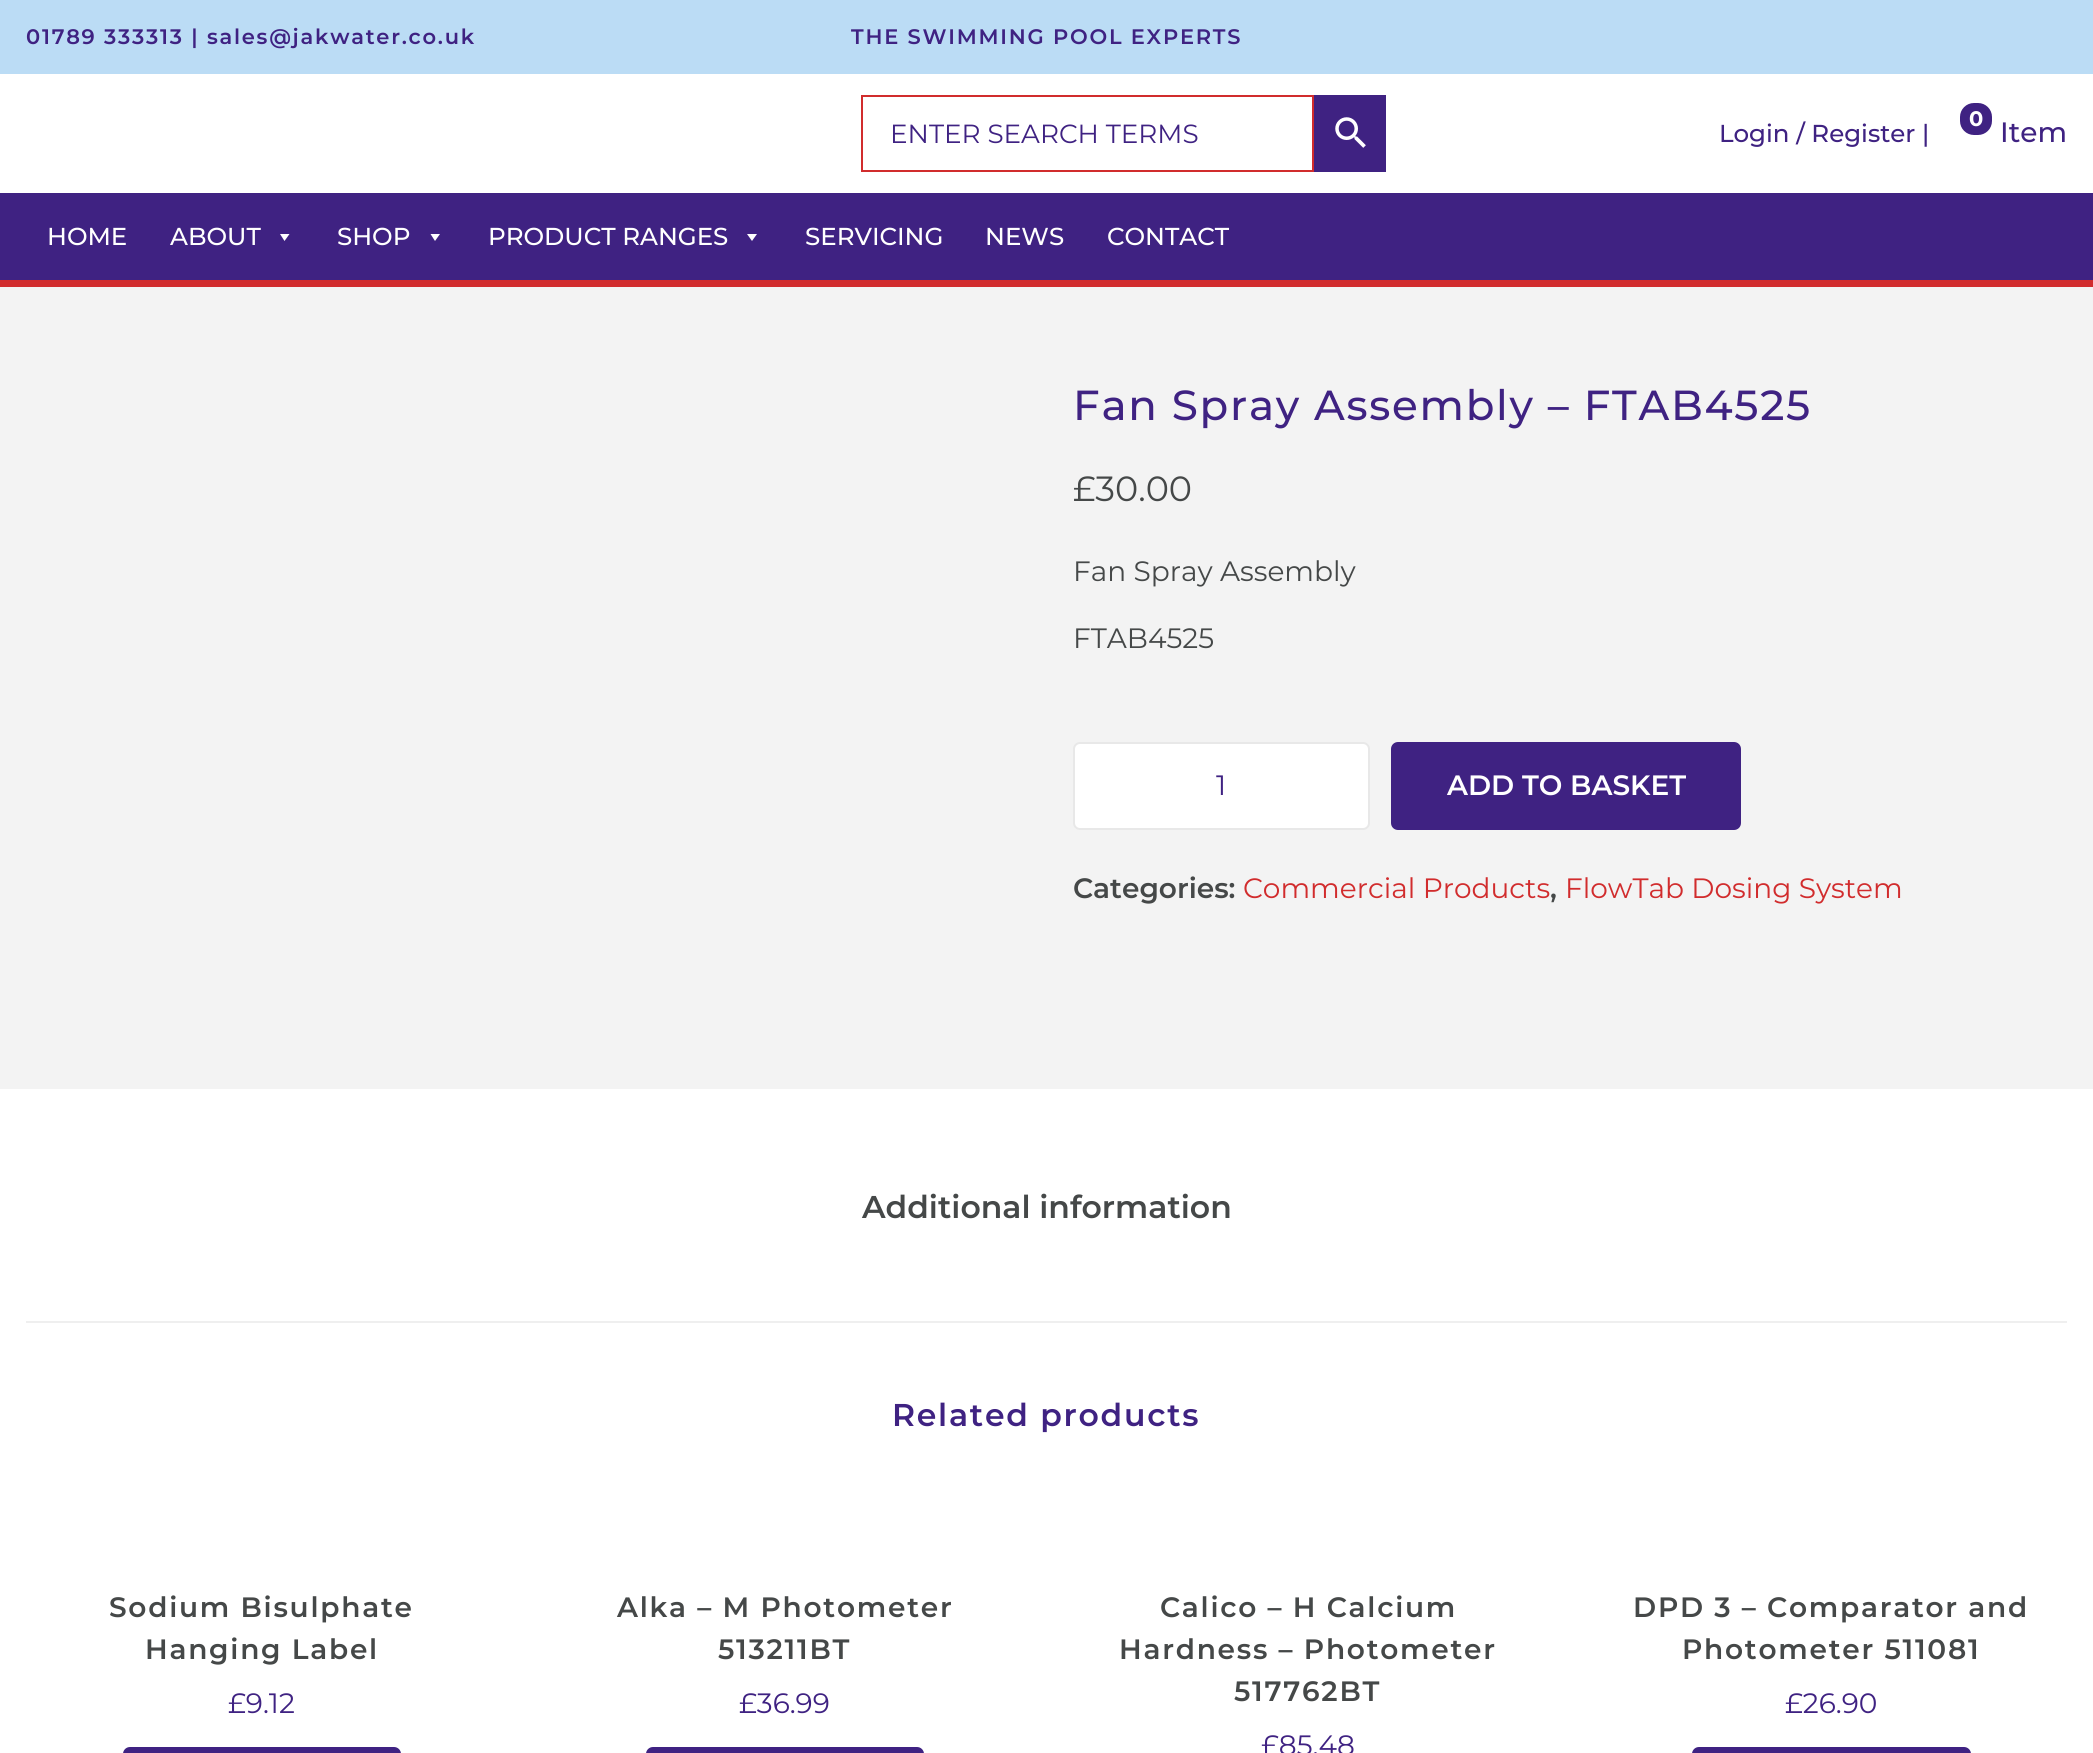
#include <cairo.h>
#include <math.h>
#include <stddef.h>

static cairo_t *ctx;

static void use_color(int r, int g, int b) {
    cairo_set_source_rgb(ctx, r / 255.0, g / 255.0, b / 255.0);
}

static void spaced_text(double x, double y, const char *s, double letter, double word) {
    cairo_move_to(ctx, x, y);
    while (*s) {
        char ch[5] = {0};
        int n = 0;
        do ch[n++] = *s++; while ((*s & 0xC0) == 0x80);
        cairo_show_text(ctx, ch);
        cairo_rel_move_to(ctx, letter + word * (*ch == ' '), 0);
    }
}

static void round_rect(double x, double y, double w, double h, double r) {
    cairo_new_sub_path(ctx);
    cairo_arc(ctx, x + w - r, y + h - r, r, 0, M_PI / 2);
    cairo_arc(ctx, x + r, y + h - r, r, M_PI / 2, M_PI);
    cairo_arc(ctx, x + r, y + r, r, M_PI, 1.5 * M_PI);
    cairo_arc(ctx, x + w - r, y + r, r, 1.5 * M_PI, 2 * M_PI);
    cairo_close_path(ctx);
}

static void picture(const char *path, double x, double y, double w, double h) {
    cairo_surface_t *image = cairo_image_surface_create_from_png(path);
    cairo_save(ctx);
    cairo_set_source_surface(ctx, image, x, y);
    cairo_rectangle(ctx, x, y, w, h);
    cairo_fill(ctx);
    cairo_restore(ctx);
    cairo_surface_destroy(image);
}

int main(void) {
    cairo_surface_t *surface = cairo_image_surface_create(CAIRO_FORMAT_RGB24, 2093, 1753);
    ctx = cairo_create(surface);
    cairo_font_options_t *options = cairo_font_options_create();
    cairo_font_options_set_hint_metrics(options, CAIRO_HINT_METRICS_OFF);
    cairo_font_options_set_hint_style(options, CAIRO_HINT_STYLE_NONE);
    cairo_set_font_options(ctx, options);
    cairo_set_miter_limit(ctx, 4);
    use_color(255, 255, 255);
    cairo_paint(ctx);
    use_color(187, 220, 245);
    cairo_rectangle(ctx, 0, 0, 2093, 74);
    cairo_fill(ctx);
    cairo_select_font_face(ctx, "Montserrat SemiBold", CAIRO_FONT_SLANT_NORMAL, CAIRO_FONT_WEIGHT_NORMAL);
    cairo_set_font_size(ctx, 21);
    use_color(63, 34, 130);
    spaced_text(26, 44, "01789 333313 | sales@jakwater.co.uk", 1.75, 0);
    spaced_text(851, 44, "THE SWIMMING POOL EXPERTS", 1.75, 0);
    cairo_rectangle(ctx, 862, 96, 451, 75);
    use_color(209, 44, 45);
    cairo_stroke(ctx);
    cairo_select_font_face(ctx, "Montserrat", CAIRO_FONT_SLANT_NORMAL, CAIRO_FONT_WEIGHT_NORMAL);
    cairo_set_font_size(ctx, 26.25);
    use_color(63, 34, 130);
    cairo_move_to(ctx, 890, 143);
    cairo_show_text(ctx, "ENTER SEARCH TERMS");
    cairo_rectangle(ctx, 1314, 95, 72, 77);
    cairo_fill(ctx);
    picture("img1.png", 1335, 117, 31, 31);
    round_rect(1960, 103, 32, 32, 14);
    cairo_fill(ctx);
    cairo_select_font_face(ctx, "Montserrat", CAIRO_FONT_SLANT_NORMAL, CAIRO_FONT_WEIGHT_BOLD);
    cairo_set_font_size(ctx, 21);
    use_color(255, 255, 255);
    cairo_move_to(ctx, 1969, 126);
    cairo_show_text(ctx, "0");
    cairo_select_font_face(ctx, "Montserrat Medium", CAIRO_FONT_SLANT_NORMAL, CAIRO_FONT_WEIGHT_NORMAL);
    cairo_set_font_size(ctx, 24.5);
    use_color(63, 34, 130);
    cairo_move_to(ctx, 1719, 142);
    cairo_show_text(ctx, "Login / Register |");
    cairo_set_font_size(ctx, 28);
    cairo_move_to(ctx, 2000, 142);
    cairo_show_text(ctx, "Item");
    cairo_rectangle(ctx, 0, 193, 2093, 87);
    cairo_fill(ctx);
    use_color(209, 44, 45);
    cairo_rectangle(ctx, 0, 280, 2093, 7);
    cairo_fill(ctx);
    cairo_set_font_size(ctx, 24.5);
    use_color(255, 255, 255);
    cairo_move_to(ctx, 47, 245);
    cairo_show_text(ctx, "HOME");
    cairo_move_to(ctx, 170, 245);
    cairo_show_text(ctx, "ABOUT");
    cairo_new_path(ctx);
    cairo_move_to(ctx, 289.5, 234);
    cairo_line_to(ctx, 284.5, 241);
    cairo_line_to(ctx, 280, 234);
    cairo_close_path(ctx);
    cairo_fill(ctx);
    cairo_move_to(ctx, 337, 245);
    cairo_show_text(ctx, "SHOP");
    cairo_new_path(ctx);
    cairo_move_to(ctx, 440, 234);
    cairo_line_to(ctx, 435, 241);
    cairo_line_to(ctx, 430.5, 234);
    cairo_close_path(ctx);
    cairo_fill(ctx);
    cairo_move_to(ctx, 488, 245);
    cairo_show_text(ctx, "PRODUCT RANGES");
    cairo_new_path(ctx);
    cairo_move_to(ctx, 757, 234);
    cairo_line_to(ctx, 752, 241);
    cairo_line_to(ctx, 747, 234);
    cairo_close_path(ctx);
    cairo_fill(ctx);
    cairo_move_to(ctx, 805, 245);
    cairo_show_text(ctx, "SERVICING");
    cairo_move_to(ctx, 985, 245);
    cairo_show_text(ctx, "NEWS");
    cairo_move_to(ctx, 1107, 245);
    cairo_show_text(ctx, "CONTACT");
    use_color(243, 243, 243);
    cairo_rectangle(ctx, 0, 287, 2093, 802);
    cairo_fill(ctx);
    cairo_set_font_size(ctx, 42);
    use_color(63, 34, 130);
    spaced_text(1073, 420, "Fan Spray Assembly – FTAB4525", 1.75, 0);
    cairo_select_font_face(ctx, "Montserrat", CAIRO_FONT_SLANT_NORMAL, CAIRO_FONT_WEIGHT_NORMAL);
    cairo_set_font_size(ctx, 35);
    use_color(69, 72, 72);
    cairo_move_to(ctx, 1073, 501);
    cairo_show_text(ctx, "£30.00");
    cairo_set_font_size(ctx, 28);
    cairo_move_to(ctx, 1073, 581);
    cairo_show_text(ctx, "Fan Spray Assembly");
    cairo_move_to(ctx, 1073, 648);
    cairo_show_text(ctx, "FTAB4525");
    use_color(255, 255, 255);
    round_rect(1074, 743, 295, 86, 6);
    cairo_fill_preserve(ctx);
    use_color(232, 232, 232);
    cairo_stroke(ctx);
    use_color(63, 34, 130);
    cairo_move_to(ctx, 1216, 795);
    cairo_show_text(ctx, "1");
    round_rect(1391, 742, 350, 88, 7);
    cairo_fill(ctx);
    cairo_select_font_face(ctx, "Montserrat SemiBold", CAIRO_FONT_SLANT_NORMAL, CAIRO_FONT_WEIGHT_NORMAL);
    use_color(255, 255, 255);
    cairo_move_to(ctx, 1447, 795);
    cairo_show_text(ctx, "ADD TO BASKET");
    use_color(69, 72, 72);
    cairo_move_to(ctx, 1073, 898);
    cairo_show_text(ctx, "Categories:");
    cairo_select_font_face(ctx, "Montserrat", CAIRO_FONT_SLANT_NORMAL, CAIRO_FONT_WEIGHT_NORMAL);
    use_color(209, 44, 45);
    cairo_move_to(ctx, 1243, 898);
    cairo_show_text(ctx, "Commercial Products");
    cairo_select_font_face(ctx, "Montserrat SemiBold", CAIRO_FONT_SLANT_NORMAL, CAIRO_FONT_WEIGHT_NORMAL);
    use_color(69, 72, 72);
    cairo_move_to(ctx, 1550, 898);
    cairo_show_text(ctx, ",");
    cairo_select_font_face(ctx, "Montserrat", CAIRO_FONT_SLANT_NORMAL, CAIRO_FONT_WEIGHT_NORMAL);
    use_color(209, 44, 45);
    cairo_move_to(ctx, 1565, 898);
    cairo_show_text(ctx, "FlowTab Dosing System");
    cairo_select_font_face(ctx, "Montserrat SemiBold", CAIRO_FONT_SLANT_NORMAL, CAIRO_FONT_WEIGHT_NORMAL);
    cairo_set_font_size(ctx, 31.5);
    use_color(69, 72, 72);
    cairo_move_to(ctx, 862, 1218);
    cairo_show_text(ctx, "Additional information");
    use_color(239, 239, 239);
    cairo_rectangle(ctx, 26, 1321, 2041, 2);
    cairo_fill(ctx);
    use_color(63, 34, 130);
    spaced_text(892, 1426, "Related products", 1.75, 0);
    cairo_set_font_size(ctx, 28);
    use_color(69, 72, 72);
    spaced_text(109, 1617, "Sodium Bisulphate", 1.75, 0);
    spaced_text(145, 1659, "Hanging Label", 1.75, 0);
    cairo_select_font_face(ctx, "Montserrat", CAIRO_FONT_SLANT_NORMAL, CAIRO_FONT_WEIGHT_NORMAL);
    use_color(63, 34, 130);
    cairo_move_to(ctx, 228, 1713);
    cairo_show_text(ctx, "£9.12");
    round_rect(123, 1747, 278, 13, 7);
    cairo_fill(ctx);
    cairo_select_font_face(ctx, "Montserrat SemiBold", CAIRO_FONT_SLANT_NORMAL, CAIRO_FONT_WEIGHT_NORMAL);
    use_color(69, 72, 72);
    spaced_text(617, 1617, "Alka – M Photometer", 1.75, 0);
    spaced_text(718, 1659, "513211BT", 1.75, 0);
    cairo_select_font_face(ctx, "Montserrat", CAIRO_FONT_SLANT_NORMAL, CAIRO_FONT_WEIGHT_NORMAL);
    use_color(63, 34, 130);
    cairo_move_to(ctx, 739, 1713);
    cairo_show_text(ctx, "£36.99");
    round_rect(646, 1747, 278, 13, 7);
    cairo_fill(ctx);
    cairo_select_font_face(ctx, "Montserrat SemiBold", CAIRO_FONT_SLANT_NORMAL, CAIRO_FONT_WEIGHT_NORMAL);
    use_color(69, 72, 72);
    spaced_text(1160, 1617, "Calico – H Calcium", 1.75, 0);
    spaced_text(1119, 1659, "Hardness – Photometer", 1.75, 0);
    spaced_text(1234, 1701, "517762BT", 1.75, 0);
    cairo_select_font_face(ctx, "Montserrat", CAIRO_FONT_SLANT_NORMAL, CAIRO_FONT_WEIGHT_NORMAL);
    use_color(63, 34, 130);
    cairo_move_to(ctx, 1261, 1755);
    cairo_show_text(ctx, "£85.48");
    cairo_select_font_face(ctx, "Montserrat SemiBold", CAIRO_FONT_SLANT_NORMAL, CAIRO_FONT_WEIGHT_NORMAL);
    use_color(69, 72, 72);
    spaced_text(1633, 1617, "DPD 3 – Comparator and", 1.75, 0);
    spaced_text(1682, 1659, "Photometer 511081", 1.75, 0);
    cairo_select_font_face(ctx, "Montserrat", CAIRO_FONT_SLANT_NORMAL, CAIRO_FONT_WEIGHT_NORMAL);
    use_color(63, 34, 130);
    cairo_move_to(ctx, 1785, 1713);
    cairo_show_text(ctx, "£26.90");
    round_rect(1692, 1747, 279, 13, 7);
    cairo_fill(ctx);
    cairo_surface_write_to_png(surface, "result.png");
    cairo_font_options_destroy(options);
    cairo_destroy(ctx);
    cairo_surface_destroy(surface);
    return 0;
}
